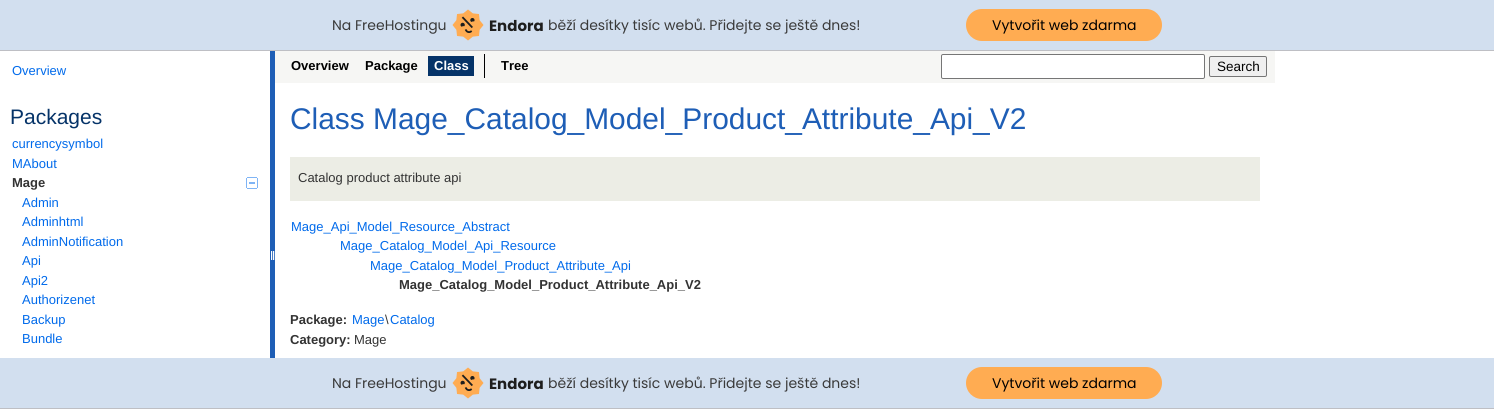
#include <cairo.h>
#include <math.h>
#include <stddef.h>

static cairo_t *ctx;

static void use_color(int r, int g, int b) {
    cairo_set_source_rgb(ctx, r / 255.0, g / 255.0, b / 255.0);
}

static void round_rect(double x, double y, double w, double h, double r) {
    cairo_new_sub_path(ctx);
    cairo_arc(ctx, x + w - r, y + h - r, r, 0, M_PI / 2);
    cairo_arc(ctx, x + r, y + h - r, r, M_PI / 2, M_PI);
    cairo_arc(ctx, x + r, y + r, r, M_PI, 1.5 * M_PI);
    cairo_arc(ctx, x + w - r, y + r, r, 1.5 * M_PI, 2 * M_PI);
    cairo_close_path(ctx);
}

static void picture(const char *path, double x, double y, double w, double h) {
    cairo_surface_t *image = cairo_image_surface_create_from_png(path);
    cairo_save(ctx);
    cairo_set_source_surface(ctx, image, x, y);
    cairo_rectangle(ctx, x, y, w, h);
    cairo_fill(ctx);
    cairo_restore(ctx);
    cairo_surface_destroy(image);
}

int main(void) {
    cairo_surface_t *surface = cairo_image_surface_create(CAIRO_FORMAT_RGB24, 1494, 409);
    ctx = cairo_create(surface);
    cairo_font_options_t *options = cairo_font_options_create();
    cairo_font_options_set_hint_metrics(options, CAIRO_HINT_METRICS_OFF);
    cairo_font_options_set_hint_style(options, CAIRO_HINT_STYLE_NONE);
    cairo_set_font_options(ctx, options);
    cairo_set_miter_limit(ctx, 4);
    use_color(255, 255, 255);
    cairo_paint(ctx);
    use_color(210, 223, 239);
    cairo_rectangle(ctx, 0, 0, 1494, 50);
    cairo_fill(ctx);
    use_color(190, 191, 196);
    cairo_rectangle(ctx, 0, 50, 1494, 1);
    cairo_fill(ctx);
    cairo_select_font_face(ctx, "Poppins", CAIRO_FONT_SLANT_NORMAL, CAIRO_FONT_WEIGHT_NORMAL);
    cairo_set_font_size(ctx, 14);
    use_color(58, 58, 58);
    cairo_move_to(ctx, 332, 30);
    cairo_show_text(ctx, "Na FreeHostingu");
    picture("img1.png", 452, 9, 32, 32);
    cairo_select_font_face(ctx, "Poppins", CAIRO_FONT_SLANT_NORMAL, CAIRO_FONT_WEIGHT_BOLD);
    cairo_set_font_size(ctx, 15);
    use_color(30, 30, 30);
    cairo_move_to(ctx, 489, 31);
    cairo_show_text(ctx, "Endora");
    cairo_select_font_face(ctx, "Poppins", CAIRO_FONT_SLANT_NORMAL, CAIRO_FONT_WEIGHT_NORMAL);
    cairo_set_font_size(ctx, 14);
    use_color(58, 58, 58);
    cairo_move_to(ctx, 548, 30);
    cairo_show_text(ctx, "běží desítky tisíc webů. Přidejte se ještě dnes!");
    use_color(255, 172, 82);
    round_rect(966, 9, 196, 32, 16);
    cairo_fill(ctx);
    use_color(0, 0, 0);
    cairo_move_to(ctx, 992, 30);
    cairo_show_text(ctx, "Vytvořit web zdarma");
    cairo_select_font_face(ctx, "Liberation Sans", CAIRO_FONT_SLANT_NORMAL, CAIRO_FONT_WEIGHT_NORMAL);
    cairo_set_font_size(ctx, 13);
    use_color(0, 106, 235);
    cairo_move_to(ctx, 12, 75);
    cairo_show_text(ctx, "Overview");
    cairo_set_font_size(ctx, 21);
    use_color(5, 51, 104);
    cairo_move_to(ctx, 10, 124);
    cairo_show_text(ctx, "Packages");
    cairo_set_font_size(ctx, 13);
    use_color(0, 106, 235);
    cairo_move_to(ctx, 12, 148);
    cairo_show_text(ctx, "currencysymbol");
    cairo_move_to(ctx, 12, 168);
    cairo_show_text(ctx, "MAbout");
    cairo_select_font_face(ctx, "Liberation Sans", CAIRO_FONT_SLANT_NORMAL, CAIRO_FONT_WEIGHT_BOLD);
    use_color(51, 51, 51);
    cairo_move_to(ctx, 12, 187);
    cairo_show_text(ctx, "Mage");
    picture("img2.png", 246, 177, 12, 12);
    cairo_select_font_face(ctx, "Liberation Sans", CAIRO_FONT_SLANT_NORMAL, CAIRO_FONT_WEIGHT_NORMAL);
    use_color(0, 106, 235);
    cairo_move_to(ctx, 22, 207);
    cairo_show_text(ctx, "Admin");
    cairo_move_to(ctx, 22, 226);
    cairo_show_text(ctx, "Adminhtml");
    cairo_move_to(ctx, 22, 246);
    cairo_show_text(ctx, "AdminNotification");
    cairo_move_to(ctx, 22, 265);
    cairo_show_text(ctx, "Api");
    cairo_move_to(ctx, 22, 285);
    cairo_show_text(ctx, "Api2");
    cairo_move_to(ctx, 22, 304);
    cairo_show_text(ctx, "Authorizenet");
    cairo_move_to(ctx, 22, 324);
    cairo_show_text(ctx, "Backup");
    cairo_move_to(ctx, 22, 343);
    cairo_show_text(ctx, "Bundle");
    use_color(30, 94, 182);
    cairo_rectangle(ctx, 270, 51, 5, 307);
    cairo_fill(ctx);
    picture("img3.png", 271, 251, 4, 9);
    use_color(246, 246, 244);
    cairo_rectangle(ctx, 275, 51, 1000, 32);
    cairo_fill(ctx);
    cairo_select_font_face(ctx, "Liberation Sans", CAIRO_FONT_SLANT_NORMAL, CAIRO_FONT_WEIGHT_BOLD);
    use_color(0, 0, 0);
    cairo_move_to(ctx, 291, 70);
    cairo_show_text(ctx, "Overview");
    cairo_move_to(ctx, 365, 70);
    cairo_show_text(ctx, "Package");
    use_color(5, 51, 104);
    cairo_rectangle(ctx, 428, 56, 46, 20);
    cairo_fill(ctx);
    use_color(255, 255, 255);
    cairo_move_to(ctx, 434, 70);
    cairo_show_text(ctx, "Class");
    use_color(0, 0, 0);
    cairo_rectangle(ctx, 484, 54, 1, 24);
    cairo_fill(ctx);
    cairo_move_to(ctx, 501, 70);
    cairo_show_text(ctx, "Tree");
    use_color(255, 255, 255);
    round_rect(941.5, 54.5, 263, 24, 1.5);
    cairo_fill_preserve(ctx);
    use_color(118, 118, 118);
    cairo_set_line_width(ctx, 1);
    cairo_stroke(ctx);
    use_color(239, 239, 239);
    round_rect(1209.5, 56.5, 57, 20, 1.5);
    cairo_fill_preserve(ctx);
    use_color(118, 118, 118);
    cairo_stroke(ctx);
    cairo_select_font_face(ctx, "Liberation Sans", CAIRO_FONT_SLANT_NORMAL, CAIRO_FONT_WEIGHT_NORMAL);
    cairo_set_font_size(ctx, 13.5);
    use_color(0, 0, 0);
    cairo_move_to(ctx, 1217, 71);
    cairo_show_text(ctx, "Search");
    cairo_set_font_size(ctx, 29.9);
    use_color(30, 94, 182);
    cairo_move_to(ctx, 290, 129);
    cairo_show_text(ctx, "Class Mage_Catalog_Model_Product_Attribute_Api_V2");
    use_color(236, 237, 229);
    cairo_rectangle(ctx, 290, 157, 970, 44);
    cairo_fill(ctx);
    cairo_set_font_size(ctx, 13);
    use_color(51, 51, 51);
    cairo_move_to(ctx, 298, 182);
    cairo_show_text(ctx, "Catalog product attribute api");
    use_color(0, 106, 235);
    cairo_move_to(ctx, 291, 231);
    cairo_show_text(ctx, "Mage_Api_Model_Resource_Abstract");
    cairo_move_to(ctx, 340, 250);
    cairo_show_text(ctx, "Mage_Catalog_Model_Api_Resource");
    cairo_move_to(ctx, 370, 270);
    cairo_show_text(ctx, "Mage_Catalog_Model_Product_Attribute_Api");
    cairo_select_font_face(ctx, "Liberation Sans", CAIRO_FONT_SLANT_NORMAL, CAIRO_FONT_WEIGHT_BOLD);
    use_color(51, 51, 51);
    cairo_move_to(ctx, 399, 289);
    cairo_show_text(ctx, "Mage_Catalog_Model_Product_Attribute_Api_V2");
    cairo_move_to(ctx, 290, 324);
    cairo_show_text(ctx, "Package:");
    cairo_select_font_face(ctx, "Liberation Sans", CAIRO_FONT_SLANT_NORMAL, CAIRO_FONT_WEIGHT_NORMAL);
    use_color(0, 106, 235);
    cairo_move_to(ctx, 352, 324);
    cairo_show_text(ctx, "Mage");
    use_color(51, 51, 51);
    cairo_move_to(ctx, 385, 324);
    cairo_show_text(ctx, "\\");
    use_color(0, 106, 235);
    cairo_move_to(ctx, 390, 324);
    cairo_show_text(ctx, "Catalog");
    cairo_select_font_face(ctx, "Liberation Sans", CAIRO_FONT_SLANT_NORMAL, CAIRO_FONT_WEIGHT_BOLD);
    use_color(51, 51, 51);
    cairo_move_to(ctx, 290, 344);
    cairo_show_text(ctx, "Category:");
    cairo_select_font_face(ctx, "Liberation Sans", CAIRO_FONT_SLANT_NORMAL, CAIRO_FONT_WEIGHT_NORMAL);
    cairo_move_to(ctx, 354, 344);
    cairo_show_text(ctx, "Mage");
    use_color(210, 223, 239);
    cairo_rectangle(ctx, 0, 358, 1494, 50);
    cairo_fill(ctx);
    use_color(190, 191, 196);
    cairo_rectangle(ctx, 0, 408, 1494, 1);
    cairo_fill(ctx);
    cairo_select_font_face(ctx, "Poppins", CAIRO_FONT_SLANT_NORMAL, CAIRO_FONT_WEIGHT_NORMAL);
    cairo_set_font_size(ctx, 14);
    use_color(58, 58, 58);
    cairo_move_to(ctx, 332, 388);
    cairo_show_text(ctx, "Na FreeHostingu");
    picture("img1.png", 452, 367, 32, 32);
    cairo_select_font_face(ctx, "Poppins", CAIRO_FONT_SLANT_NORMAL, CAIRO_FONT_WEIGHT_BOLD);
    cairo_set_font_size(ctx, 15);
    use_color(30, 30, 30);
    cairo_move_to(ctx, 489, 389);
    cairo_show_text(ctx, "Endora");
    cairo_select_font_face(ctx, "Poppins", CAIRO_FONT_SLANT_NORMAL, CAIRO_FONT_WEIGHT_NORMAL);
    cairo_set_font_size(ctx, 14);
    use_color(58, 58, 58);
    cairo_move_to(ctx, 548, 388);
    cairo_show_text(ctx, "běží desítky tisíc webů. Přidejte se ještě dnes!");
    use_color(255, 172, 82);
    round_rect(966, 367, 196, 32, 16);
    cairo_fill(ctx);
    use_color(0, 0, 0);
    cairo_move_to(ctx, 992, 388);
    cairo_show_text(ctx, "Vytvořit web zdarma");
    cairo_surface_write_to_png(surface, "result.png");
    cairo_font_options_destroy(options);
    cairo_destroy(ctx);
    cairo_surface_destroy(surface);
    return 0;
}
